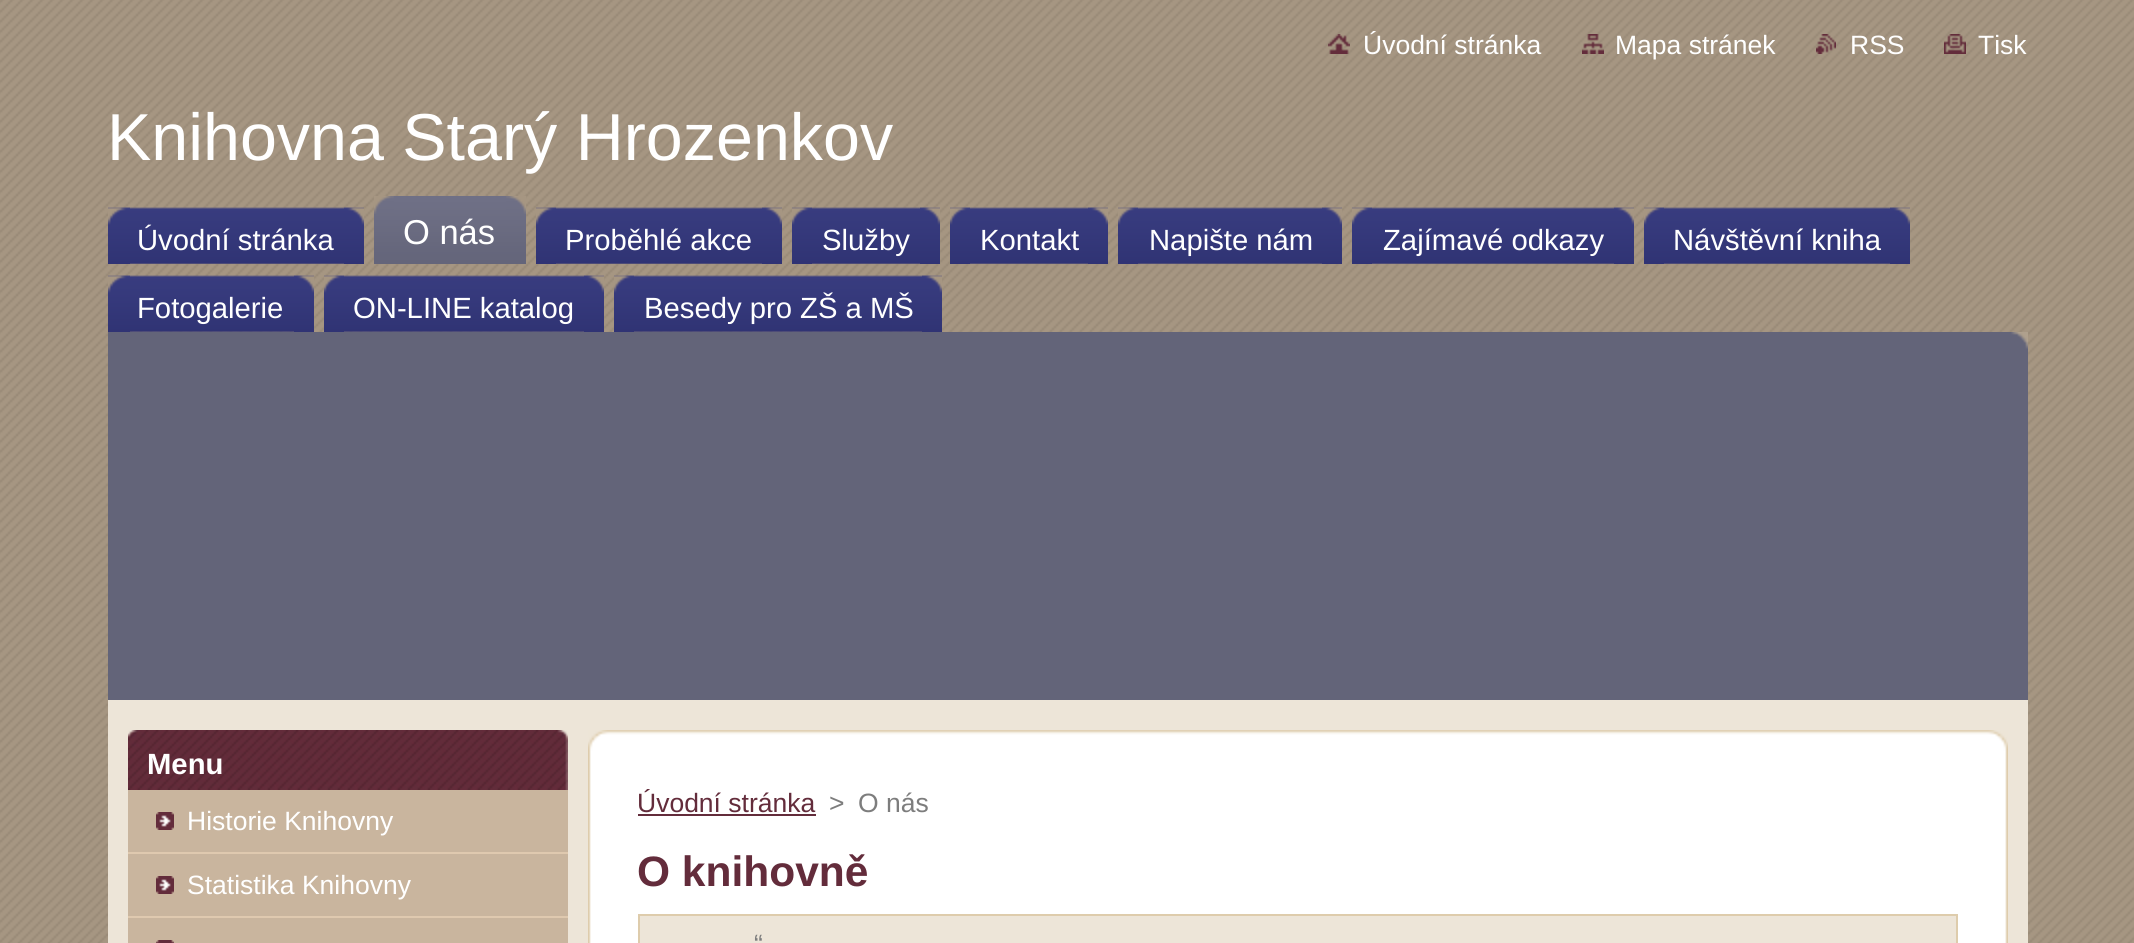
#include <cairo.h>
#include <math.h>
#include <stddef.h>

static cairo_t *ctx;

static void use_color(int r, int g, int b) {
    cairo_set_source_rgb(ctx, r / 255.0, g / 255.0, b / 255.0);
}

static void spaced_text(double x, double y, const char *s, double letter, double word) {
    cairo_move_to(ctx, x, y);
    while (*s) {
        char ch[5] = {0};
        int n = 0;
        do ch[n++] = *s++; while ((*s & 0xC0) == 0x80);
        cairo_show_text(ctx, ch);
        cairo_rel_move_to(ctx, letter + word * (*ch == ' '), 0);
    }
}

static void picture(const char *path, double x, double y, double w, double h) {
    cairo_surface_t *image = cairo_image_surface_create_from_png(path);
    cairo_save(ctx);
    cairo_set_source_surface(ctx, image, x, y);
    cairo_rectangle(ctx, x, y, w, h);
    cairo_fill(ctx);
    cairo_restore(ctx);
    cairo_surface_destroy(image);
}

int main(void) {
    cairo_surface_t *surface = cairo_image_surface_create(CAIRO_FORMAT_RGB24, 2134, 943);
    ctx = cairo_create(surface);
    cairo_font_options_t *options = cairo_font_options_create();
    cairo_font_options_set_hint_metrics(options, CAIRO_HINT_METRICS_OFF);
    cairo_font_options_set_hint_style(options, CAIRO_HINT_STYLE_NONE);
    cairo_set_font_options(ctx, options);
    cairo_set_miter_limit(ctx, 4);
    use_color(255, 255, 255);
    cairo_paint(ctx);
    picture("img1.png", 0, 0, 2134, 943);
    picture("img2.png", 1328, 34, 22, 20);
    cairo_select_font_face(ctx, "Liberation Sans", CAIRO_FONT_SLANT_NORMAL, CAIRO_FONT_WEIGHT_NORMAL);
    cairo_set_font_size(ctx, 26.5);
    use_color(255, 255, 255);
    cairo_move_to(ctx, 1363, 54);
    cairo_show_text(ctx, "Úvodní stránka");
    picture("img3.png", 1582, 34, 22, 20);
    cairo_move_to(ctx, 1615, 54);
    cairo_show_text(ctx, "Mapa stránek");
    picture("img4.png", 1816, 34, 20, 20);
    cairo_move_to(ctx, 1850, 54);
    cairo_show_text(ctx, "RSS");
    picture("img5.png", 1944, 34, 22, 20);
    cairo_move_to(ctx, 1978, 54);
    cairo_show_text(ctx, "Tisk");
    cairo_set_font_size(ctx, 66.4);
    cairo_move_to(ctx, 107, 160);
    cairo_show_text(ctx, "Knihovna Starý Hrozenkov");
    picture("img6.png", 108, 207, 256, 57);
    picture("img7.png", 108, 207, 22, 57);
    picture("img8.png", 344, 207, 20, 57);
    cairo_set_font_size(ctx, 29.25);
    cairo_move_to(ctx, 137, 250);
    cairo_show_text(ctx, "Úvodní stránka");
    picture("img9.png", 374, 196, 152, 68);
    picture("img10.png", 374, 196, 20, 18);
    picture("img11.png", 506, 196, 20, 18);
    cairo_set_font_size(ctx, 34.5);
    cairo_move_to(ctx, 403, 244);
    cairo_show_text(ctx, "O nás");
    picture("img12.png", 536, 207, 246, 57);
    picture("img13.png", 536, 207, 20, 57);
    picture("img14.png", 762, 207, 20, 57);
    cairo_set_font_size(ctx, 29.25);
    cairo_move_to(ctx, 565, 250);
    cairo_show_text(ctx, "Proběhlé akce");
    picture("img15.png", 792, 207, 148, 57);
    picture("img16.png", 792, 207, 20, 57);
    picture("img17.png", 920, 207, 20, 57);
    cairo_move_to(ctx, 822, 250);
    cairo_show_text(ctx, "Služby");
    picture("img18.png", 950, 207, 158, 57);
    picture("img19.png", 950, 207, 20, 57);
    picture("img20.png", 1088, 207, 20, 57);
    cairo_move_to(ctx, 980, 250);
    cairo_show_text(ctx, "Kontakt");
    picture("img21.png", 1118, 207, 224, 57);
    picture("img22.png", 1118, 207, 20, 57);
    picture("img14.png", 1322, 207, 20, 57);
    cairo_move_to(ctx, 1149, 250);
    cairo_show_text(ctx, "Napište nám");
    picture("img23.png", 1352, 207, 282, 57);
    picture("img16.png", 1352, 207, 20, 57);
    picture("img8.png", 1614, 207, 20, 57);
    cairo_move_to(ctx, 1383, 250);
    cairo_show_text(ctx, "Zajímavé odkazy");
    picture("img24.png", 1644, 207, 266, 57);
    picture("img25.png", 1644, 207, 20, 57);
    picture("img26.png", 1890, 207, 20, 57);
    cairo_move_to(ctx, 1673, 250);
    cairo_show_text(ctx, "Návštěvní kniha");
    picture("img27.png", 108, 275, 206, 57);
    picture("img28.png", 108, 275, 22, 57);
    picture("img29.png", 294, 275, 20, 57);
    cairo_move_to(ctx, 137, 318);
    cairo_show_text(ctx, "Fotogalerie");
    picture("img30.png", 324, 275, 280, 57);
    picture("img31.png", 324, 275, 20, 57);
    picture("img29.png", 584, 275, 20, 57);
    cairo_move_to(ctx, 353, 318);
    cairo_show_text(ctx, "ON-LINE katalog");
    picture("img32.png", 614, 275, 328, 57);
    picture("img31.png", 614, 275, 20, 57);
    picture("img33.png", 922, 275, 20, 57);
    cairo_move_to(ctx, 644, 318);
    cairo_show_text(ctx, "Besedy pro ZŠ a MŠ");
    use_color(99, 100, 121);
    cairo_rectangle(ctx, 108, 332, 1920, 368);
    cairo_fill(ctx);
    picture("img34.png", 2011, 332, 17, 17);
    use_color(237, 229, 216);
    cairo_rectangle(ctx, 108, 700, 1920, 243);
    cairo_fill(ctx);
    picture("img35.png", 128, 730, 440, 60);
    cairo_select_font_face(ctx, "Liberation Sans", CAIRO_FONT_SLANT_NORMAL, CAIRO_FONT_WEIGHT_BOLD);
    use_color(255, 255, 255);
    cairo_move_to(ctx, 147, 774);
    cairo_show_text(ctx, "Menu");
    use_color(201, 181, 158);
    cairo_rectangle(ctx, 128, 790, 440, 153);
    cairo_fill(ctx);
    picture("img36.png", 156, 812, 18, 18);
    use_color(223, 201, 175);
    cairo_rectangle(ctx, 128, 852, 440, 2);
    cairo_fill(ctx);
    cairo_select_font_face(ctx, "Liberation Sans", CAIRO_FONT_SLANT_NORMAL, CAIRO_FONT_WEIGHT_NORMAL);
    cairo_set_font_size(ctx, 26.5);
    use_color(255, 255, 255);
    cairo_move_to(ctx, 187, 830);
    cairo_show_text(ctx, "Historie Knihovny");
    picture("img36.png", 156, 876, 18, 18);
    use_color(223, 201, 175);
    cairo_rectangle(ctx, 128, 916, 440, 2);
    cairo_fill(ctx);
    use_color(255, 255, 255);
    cairo_move_to(ctx, 187, 894);
    cairo_show_text(ctx, "Statistika Knihovny");
    picture("img37.png", 156, 940, 18, 3);
    picture("img38.png", 588, 730, 1420, 100);
    picture("img39.png", 588, 830, 1420, 113);
    use_color(99, 44, 59);
    cairo_move_to(ctx, 637, 812);
    cairo_show_text(ctx, "Úvodní stránka");
    cairo_rectangle(ctx, 638, 814, 178, 2);
    cairo_fill(ctx);
    use_color(125, 125, 125);
    cairo_move_to(ctx, 829, 812);
    cairo_show_text(ctx, ">");
    cairo_move_to(ctx, 858, 812);
    cairo_show_text(ctx, "O nás");
    cairo_select_font_face(ctx, "Liberation Sans", CAIRO_FONT_SLANT_NORMAL, CAIRO_FONT_WEIGHT_BOLD);
    cairo_set_font_size(ctx, 42.5);
    use_color(99, 44, 59);
    cairo_move_to(ctx, 637, 886);
    cairo_show_text(ctx, "O knihovně");
    use_color(237, 229, 216);
    cairo_rectangle(ctx, 639, 915, 1318, 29);
    cairo_fill_preserve(ctx);
    use_color(222, 204, 172);
    cairo_stroke(ctx);
    cairo_select_font_face(ctx, "Liberation Sans", CAIRO_FONT_SLANT_NORMAL, CAIRO_FONT_WEIGHT_NORMAL);
    cairo_set_font_size(ctx, 26.5);
    use_color(125, 125, 125);
    spaced_text(754, 953, "“", 0, 10);
    cairo_surface_write_to_png(surface, "result.png");
    cairo_font_options_destroy(options);
    cairo_destroy(ctx);
    cairo_surface_destroy(surface);
    return 0;
}
